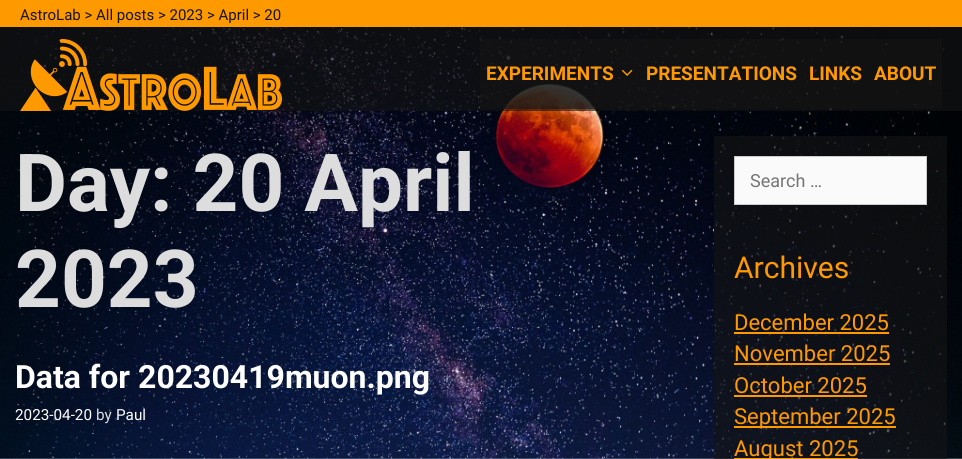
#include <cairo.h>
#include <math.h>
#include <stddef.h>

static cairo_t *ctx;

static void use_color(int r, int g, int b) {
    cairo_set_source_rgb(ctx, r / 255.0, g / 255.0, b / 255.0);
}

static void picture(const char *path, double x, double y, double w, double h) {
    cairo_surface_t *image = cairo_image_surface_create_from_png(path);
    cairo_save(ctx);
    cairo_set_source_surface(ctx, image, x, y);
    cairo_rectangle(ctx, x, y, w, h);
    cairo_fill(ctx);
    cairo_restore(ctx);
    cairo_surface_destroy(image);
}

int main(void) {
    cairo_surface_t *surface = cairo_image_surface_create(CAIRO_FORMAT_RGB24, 962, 459);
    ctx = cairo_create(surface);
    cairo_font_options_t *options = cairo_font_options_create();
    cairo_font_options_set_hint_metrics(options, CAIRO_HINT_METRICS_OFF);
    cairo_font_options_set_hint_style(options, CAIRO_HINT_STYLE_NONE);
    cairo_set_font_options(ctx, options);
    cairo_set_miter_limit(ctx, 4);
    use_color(255, 255, 255);
    cairo_paint(ctx);
    picture("img1.png", 0, 27, 962, 432);
    use_color(255, 153, 0);
    cairo_rectangle(ctx, 0, 0, 962, 27);
    cairo_fill(ctx);
    cairo_select_font_face(ctx, "Roboto", CAIRO_FONT_SLANT_NORMAL, CAIRO_FONT_WEIGHT_NORMAL);
    cairo_set_font_size(ctx, 15);
    use_color(21, 21, 21);
    cairo_move_to(ctx, 20, 20);
    cairo_show_text(ctx, "AstroLab > All posts > 2023 > April > 20");
    cairo_set_source_rgba(ctx, 0.082, 0.082, 0.082, 0.61);
    cairo_rectangle(ctx, 0, 27, 962, 84);
    cairo_fill(ctx);
    picture("img2.png", 20, 39, 262, 72);
    cairo_rectangle(ctx, 480, 39, 462, 70);
    cairo_fill(ctx);
    cairo_select_font_face(ctx, "Roboto", CAIRO_FONT_SLANT_NORMAL, CAIRO_FONT_WEIGHT_BOLD);
    cairo_set_font_size(ctx, 19);
    use_color(255, 153, 0);
    cairo_move_to(ctx, 486, 80);
    cairo_show_text(ctx, "EXPERIMENTS");
    picture("img3.png", 621, 69, 12, 7);
    cairo_move_to(ctx, 646, 80);
    cairo_show_text(ctx, "PRESENTATIONS");
    cairo_move_to(ctx, 809, 80);
    cairo_show_text(ctx, "LINKS");
    cairo_move_to(ctx, 874, 80);
    cairo_show_text(ctx, "ABOUT");
    cairo_set_font_size(ctx, 80);
    use_color(221, 221, 221);
    cairo_move_to(ctx, 15, 211);
    cairo_show_text(ctx, "Day: 20 April");
    cairo_move_to(ctx, 15, 307);
    cairo_show_text(ctx, "2023");
    cairo_set_font_size(ctx, 32);
    use_color(255, 255, 255);
    cairo_move_to(ctx, 15, 388);
    cairo_show_text(ctx, "Data for 20230419muon.png");
    cairo_select_font_face(ctx, "Roboto", CAIRO_FONT_SLANT_NORMAL, CAIRO_FONT_WEIGHT_NORMAL);
    cairo_set_font_size(ctx, 15.25);
    cairo_move_to(ctx, 15, 420);
    cairo_show_text(ctx, "2023-04-20");
    use_color(221, 221, 221);
    cairo_move_to(ctx, 96, 420);
    cairo_show_text(ctx, "by");
    use_color(255, 255, 255);
    cairo_move_to(ctx, 116, 420);
    cairo_show_text(ctx, "Paul");
    cairo_set_source_rgba(ctx, 0.082, 0.082, 0.082, 0.61);
    cairo_rectangle(ctx, 714, 136, 233, 89);
    cairo_fill(ctx);
    use_color(250, 250, 250);
    cairo_rectangle(ctx, 734.5, 156.5, 192, 48);
    cairo_fill_preserve(ctx);
    use_color(204, 204, 204);
    cairo_set_line_width(ctx, 1);
    cairo_stroke(ctx);
    cairo_set_font_size(ctx, 18);
    use_color(117, 117, 117);
    cairo_move_to(ctx, 750, 187);
    cairo_show_text(ctx, "Search …");
    cairo_set_source_rgba(ctx, 0.082, 0.082, 0.082, 0.61);
    cairo_rectangle(ctx, 714, 225, 233, 234);
    cairo_fill(ctx);
    cairo_set_font_size(ctx, 30);
    use_color(255, 153, 0);
    cairo_move_to(ctx, 734, 278);
    cairo_show_text(ctx, "Archives");
    cairo_set_font_size(ctx, 22);
    cairo_move_to(ctx, 734, 330);
    cairo_show_text(ctx, "December 2025");
    cairo_rectangle(ctx, 734, 332, 155, 2);
    cairo_fill(ctx);
    cairo_move_to(ctx, 734, 361);
    cairo_show_text(ctx, "November 2025");
    cairo_rectangle(ctx, 734, 363, 156, 2);
    cairo_fill(ctx);
    cairo_move_to(ctx, 734, 393);
    cairo_show_text(ctx, "October 2025");
    cairo_rectangle(ctx, 734, 395, 133, 2);
    cairo_fill(ctx);
    cairo_rectangle(ctx, 734, 426, 162, 2);
    cairo_fill(ctx);
    cairo_move_to(ctx, 734, 424);
    cairo_show_text(ctx, "September 2025");
    cairo_rectangle(ctx, 734, 458, 124, 1);
    cairo_fill(ctx);
    cairo_move_to(ctx, 734, 456);
    cairo_show_text(ctx, "August 2025");
    cairo_surface_write_to_png(surface, "result.png");
    cairo_font_options_destroy(options);
    cairo_destroy(ctx);
    cairo_surface_destroy(surface);
    return 0;
}
